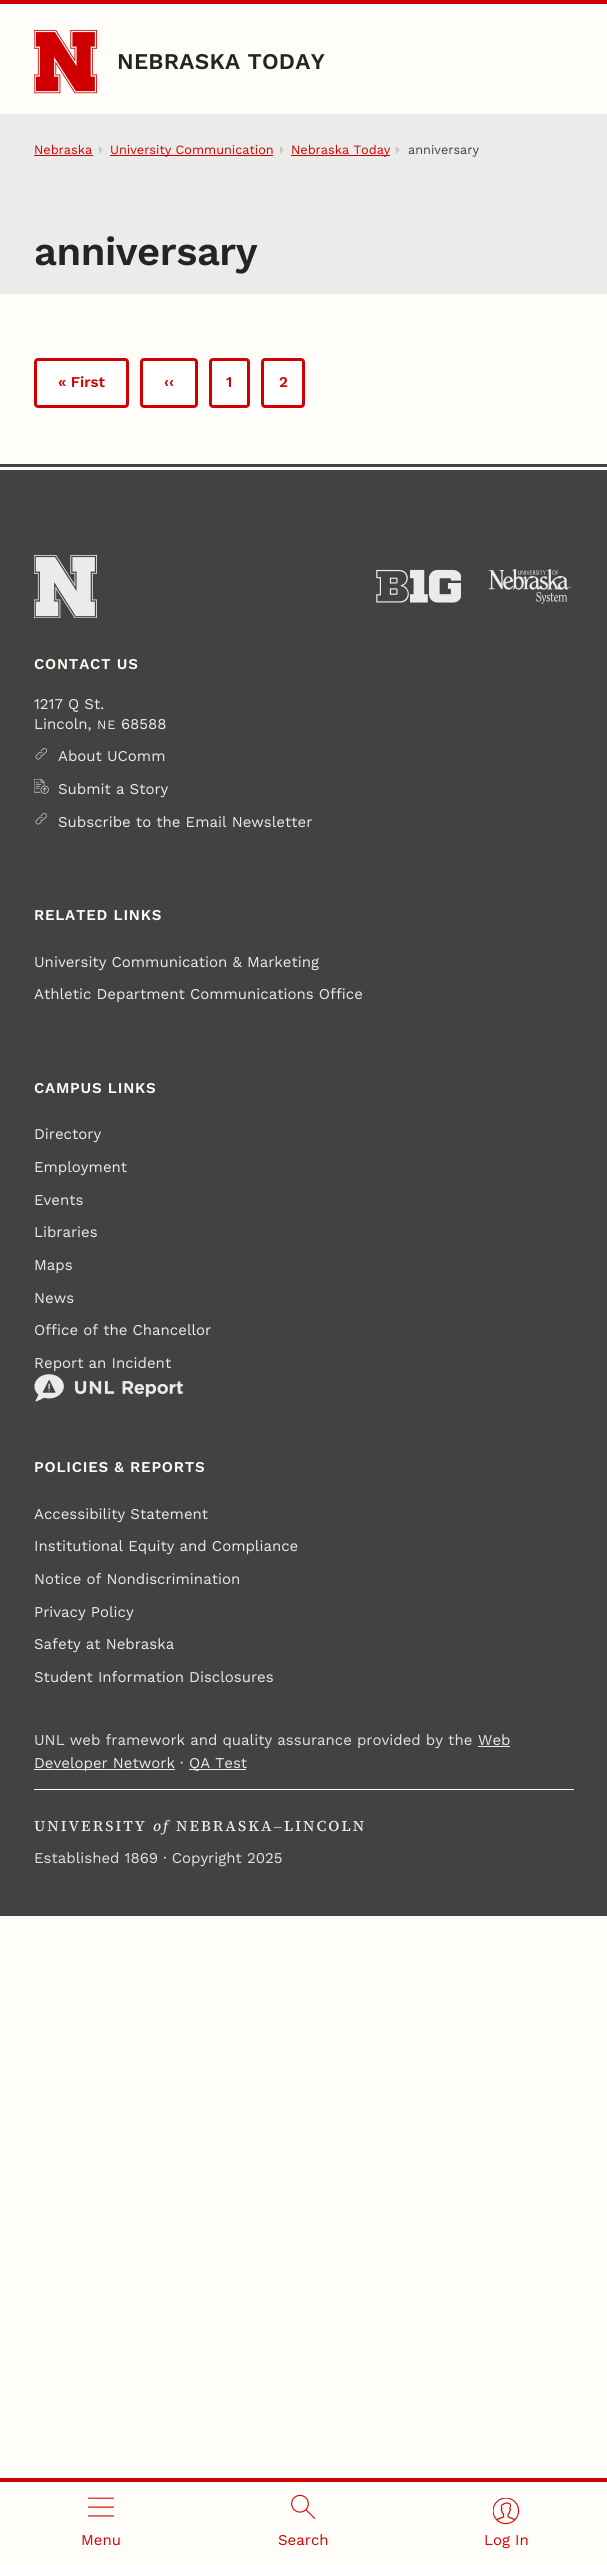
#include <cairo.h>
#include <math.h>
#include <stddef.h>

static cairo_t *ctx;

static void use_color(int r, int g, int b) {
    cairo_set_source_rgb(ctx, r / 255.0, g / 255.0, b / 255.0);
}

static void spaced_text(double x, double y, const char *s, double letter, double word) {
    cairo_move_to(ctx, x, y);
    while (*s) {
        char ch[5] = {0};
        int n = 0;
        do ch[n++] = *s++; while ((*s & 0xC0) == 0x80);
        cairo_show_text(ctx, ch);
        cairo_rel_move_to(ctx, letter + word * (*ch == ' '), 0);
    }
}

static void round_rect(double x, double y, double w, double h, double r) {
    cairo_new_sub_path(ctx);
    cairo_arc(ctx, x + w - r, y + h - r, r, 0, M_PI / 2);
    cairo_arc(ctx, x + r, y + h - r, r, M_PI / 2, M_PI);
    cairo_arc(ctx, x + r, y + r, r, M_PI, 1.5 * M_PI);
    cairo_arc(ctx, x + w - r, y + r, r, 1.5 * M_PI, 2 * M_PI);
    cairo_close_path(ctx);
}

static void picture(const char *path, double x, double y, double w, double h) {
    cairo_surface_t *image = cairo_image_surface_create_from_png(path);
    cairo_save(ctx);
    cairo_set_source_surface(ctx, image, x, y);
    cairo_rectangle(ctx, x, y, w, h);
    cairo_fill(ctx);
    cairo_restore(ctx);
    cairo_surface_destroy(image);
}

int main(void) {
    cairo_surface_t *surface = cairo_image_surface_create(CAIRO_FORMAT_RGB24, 607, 2565);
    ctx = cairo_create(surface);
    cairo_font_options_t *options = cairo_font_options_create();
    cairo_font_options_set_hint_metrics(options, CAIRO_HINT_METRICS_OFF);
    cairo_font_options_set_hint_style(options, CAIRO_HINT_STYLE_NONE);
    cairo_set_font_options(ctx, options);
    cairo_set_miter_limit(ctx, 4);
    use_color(254, 253, 250);
    cairo_paint(ctx);
    use_color(208, 0, 0);
    cairo_rectangle(ctx, 0, 0, 607, 4);
    cairo_fill(ctx);
    picture("img1.png", 34, 30, 63, 64);
    cairo_select_font_face(ctx, "Work Sans SemiBold", CAIRO_FONT_SLANT_NORMAL, CAIRO_FONT_WEIGHT_NORMAL);
    cairo_set_font_size(ctx, 22.5);
    use_color(36, 36, 35);
    spaced_text(117, 69, "NEBRASKA TODAY", 0.25, 0);
    use_color(208, 0, 0);
    cairo_rectangle(ctx, 0, 2478, 607, 4);
    cairo_fill(ctx);
    picture("img2.png", 88, 2497, 27, 20);
    cairo_select_font_face(ctx, "Work Sans", CAIRO_FONT_SLANT_NORMAL, CAIRO_FONT_WEIGHT_NORMAL);
    cairo_set_font_size(ctx, 15);
    cairo_move_to(ctx, 81, 2545);
    cairo_show_text(ctx, "Menu");
    picture("img3.png", 291, 2494, 25, 25);
    cairo_move_to(ctx, 278, 2545);
    cairo_show_text(ctx, "Search");
    picture("img4.png", 493, 2498, 27, 27);
    cairo_move_to(ctx, 484, 2545);
    cairo_show_text(ctx, "Log In");
    use_color(235, 235, 234);
    cairo_rectangle(ctx, 0, 114, 607, 180);
    cairo_fill(ctx);
    cairo_set_font_size(ctx, 12.7);
    use_color(208, 0, 0);
    cairo_move_to(ctx, 34, 154);
    cairo_show_text(ctx, "Nebraska");
    cairo_rectangle(ctx, 34, 155, 59, 1);
    cairo_fill(ctx);
    use_color(199, 200, 202);
    cairo_new_path(ctx);
    cairo_move_to(ctx, 99, 154);
    cairo_line_to(ctx, 99, 146);
    cairo_line_to(ctx, 102.5, 150);
    cairo_close_path(ctx);
    cairo_fill(ctx);
    use_color(208, 0, 0);
    cairo_rectangle(ctx, 110, 155, 163, 1);
    cairo_fill(ctx);
    cairo_move_to(ctx, 110, 154);
    cairo_show_text(ctx, "University Communication");
    use_color(199, 200, 202);
    cairo_new_path(ctx);
    cairo_move_to(ctx, 280, 154);
    cairo_line_to(ctx, 280, 146);
    cairo_line_to(ctx, 284, 150);
    cairo_close_path(ctx);
    cairo_fill(ctx);
    use_color(208, 0, 0);
    cairo_rectangle(ctx, 291, 155, 99, 1);
    cairo_fill(ctx);
    cairo_move_to(ctx, 291, 154);
    cairo_show_text(ctx, "Nebraska Today");
    use_color(199, 200, 202);
    cairo_new_path(ctx);
    cairo_move_to(ctx, 396, 154);
    cairo_line_to(ctx, 396, 146);
    cairo_line_to(ctx, 400, 150);
    cairo_close_path(ctx);
    cairo_fill(ctx);
    use_color(66, 66, 64);
    cairo_move_to(ctx, 408, 154);
    cairo_show_text(ctx, "anniversary");
    cairo_select_font_face(ctx, "Work Sans SemiBold", CAIRO_FONT_SLANT_NORMAL, CAIRO_FONT_WEIGHT_NORMAL);
    cairo_set_font_size(ctx, 40);
    use_color(36, 36, 35);
    spaced_text(34, 265, "anniversary", -0.5, 0);
    use_color(255, 255, 255);
    round_rect(35.5, 359.5, 92, 47, 2.5);
    cairo_fill_preserve(ctx);
    use_color(208, 0, 0);
    cairo_set_line_width(ctx, 3);
    cairo_stroke(ctx);
    cairo_set_font_size(ctx, 15);
    cairo_move_to(ctx, 58, 387);
    cairo_show_text(ctx, "« First");
    use_color(255, 255, 255);
    round_rect(141.5, 359.5, 55, 47, 2.5);
    cairo_fill_preserve(ctx);
    use_color(208, 0, 0);
    cairo_stroke(ctx);
    cairo_move_to(ctx, 164, 387);
    cairo_show_text(ctx, "‹‹");
    use_color(255, 255, 255);
    round_rect(210.5, 359.5, 38, 47, 2.5);
    cairo_fill_preserve(ctx);
    use_color(208, 0, 0);
    cairo_stroke(ctx);
    cairo_move_to(ctx, 226, 387);
    cairo_show_text(ctx, "1");
    use_color(255, 255, 255);
    round_rect(262.5, 359.5, 41, 47, 2.5);
    cairo_fill_preserve(ctx);
    use_color(208, 0, 0);
    cairo_stroke(ctx);
    cairo_move_to(ctx, 279, 387);
    cairo_show_text(ctx, "2");
    use_color(66, 66, 64);
    cairo_rectangle(ctx, 0, 470, 607, 1446);
    cairo_fill(ctx);
    cairo_rectangle(ctx, 0, 464, 607, 3);
    cairo_fill(ctx);
    picture("img5.png", 34, 555, 63, 63);
    picture("img6.png", 376, 569, 85, 34);
    picture("img7.png", 488, 569, 83, 35);
    use_color(254, 253, 250);
    spaced_text(34, 669, "CONTACT US", 0.8, 0);
    cairo_select_font_face(ctx, "Work Sans", CAIRO_FONT_SLANT_NORMAL, CAIRO_FONT_WEIGHT_NORMAL);
    use_color(235, 235, 234);
    cairo_move_to(ctx, 34, 709);
    cairo_show_text(ctx, "1217 Q St.");
    cairo_move_to(ctx, 34, 729);
    cairo_show_text(ctx, "Lincoln,");
    cairo_set_font_size(ctx, 12.7);
    spaced_text(97, 729, "NE", 1, 0);
    cairo_set_font_size(ctx, 15);
    cairo_move_to(ctx, 121, 729);
    cairo_show_text(ctx, "68588");
    picture("img8.png", 35, 748, 12, 12);
    cairo_move_to(ctx, 58, 761);
    cairo_show_text(ctx, "About UComm");
    picture("img9.png", 34, 779, 15, 15);
    cairo_move_to(ctx, 58, 794);
    cairo_show_text(ctx, "Submit a Story");
    picture("img8.png", 35, 813, 12, 12);
    cairo_move_to(ctx, 58, 827);
    cairo_show_text(ctx, "Subscribe to the Email Newsletter");
    cairo_select_font_face(ctx, "Work Sans SemiBold", CAIRO_FONT_SLANT_NORMAL, CAIRO_FONT_WEIGHT_NORMAL);
    use_color(254, 253, 250);
    spaced_text(34, 920, "RELATED LINKS", 0.8, 0);
    cairo_select_font_face(ctx, "Work Sans", CAIRO_FONT_SLANT_NORMAL, CAIRO_FONT_WEIGHT_NORMAL);
    use_color(235, 235, 234);
    cairo_move_to(ctx, 34, 967);
    cairo_show_text(ctx, "University Communication & Marketing");
    cairo_move_to(ctx, 34, 999);
    cairo_show_text(ctx, "Athletic Department Communications Office");
    cairo_select_font_face(ctx, "Work Sans SemiBold", CAIRO_FONT_SLANT_NORMAL, CAIRO_FONT_WEIGHT_NORMAL);
    use_color(254, 253, 250);
    spaced_text(34, 1093, "CAMPUS LINKS", 0.8, 0);
    cairo_select_font_face(ctx, "Work Sans", CAIRO_FONT_SLANT_NORMAL, CAIRO_FONT_WEIGHT_NORMAL);
    use_color(235, 235, 234);
    cairo_move_to(ctx, 34, 1139);
    cairo_show_text(ctx, "Directory");
    cairo_move_to(ctx, 34, 1172);
    cairo_show_text(ctx, "Employment");
    cairo_move_to(ctx, 34, 1205);
    cairo_show_text(ctx, "Events");
    cairo_move_to(ctx, 34, 1237);
    cairo_show_text(ctx, "Libraries");
    cairo_move_to(ctx, 34, 1270);
    cairo_show_text(ctx, "Maps");
    cairo_move_to(ctx, 34, 1303);
    cairo_show_text(ctx, "News");
    cairo_move_to(ctx, 34, 1335);
    cairo_show_text(ctx, "Office of the Chancellor");
    cairo_move_to(ctx, 34, 1368);
    cairo_show_text(ctx, "Report an Incident");
    picture("img10.png", 34, 1374, 149, 28);
    cairo_select_font_face(ctx, "Work Sans SemiBold", CAIRO_FONT_SLANT_NORMAL, CAIRO_FONT_WEIGHT_NORMAL);
    use_color(254, 253, 250);
    spaced_text(34, 1472, "POLICIES & REPORTS", 0.8, 0);
    cairo_select_font_face(ctx, "Work Sans", CAIRO_FONT_SLANT_NORMAL, CAIRO_FONT_WEIGHT_NORMAL);
    use_color(235, 235, 234);
    cairo_move_to(ctx, 34, 1519);
    cairo_show_text(ctx, "Accessibility Statement");
    cairo_move_to(ctx, 34, 1551);
    cairo_show_text(ctx, "Institutional Equity and Compliance");
    cairo_move_to(ctx, 34, 1584);
    cairo_show_text(ctx, "Notice of Nondiscrimination");
    cairo_move_to(ctx, 34, 1617);
    cairo_show_text(ctx, "Privacy Policy");
    cairo_move_to(ctx, 34, 1649);
    cairo_show_text(ctx, "Safety at Nebraska");
    cairo_move_to(ctx, 34, 1682);
    cairo_show_text(ctx, "Student Information Disclosures");
    use_color(227, 227, 226);
    cairo_move_to(ctx, 34, 1745);
    cairo_show_text(ctx, "UNL web framework and quality assurance provided by the");
    use_color(235, 235, 234);
    cairo_move_to(ctx, 478, 1745);
    cairo_show_text(ctx, "Web");
    cairo_rectangle(ctx, 478, 1746, 32, 1);
    cairo_fill(ctx);
    cairo_rectangle(ctx, 34, 1769, 141, 1);
    cairo_fill(ctx);
    cairo_move_to(ctx, 34, 1768);
    cairo_show_text(ctx, "Developer Network");
    use_color(227, 227, 226);
    cairo_move_to(ctx, 180, 1768);
    cairo_show_text(ctx, "·");
    use_color(235, 235, 234);
    cairo_rectangle(ctx, 189, 1769, 57, 1);
    cairo_fill(ctx);
    cairo_move_to(ctx, 189, 1768);
    cairo_show_text(ctx, "QA Test");
    use_color(254, 253, 250);
    cairo_rectangle(ctx, 34, 1789, 540, 1);
    cairo_fill(ctx);
    cairo_select_font_face(ctx, "Source Serif 4 Medium", CAIRO_FONT_SLANT_NORMAL, CAIRO_FONT_WEIGHT_NORMAL);
    use_color(235, 235, 234);
    spaced_text(34, 1831, "UNIVERSITY", 2, 0);
    cairo_select_font_face(ctx, "Source Serif 4 Medium", CAIRO_FONT_SLANT_ITALIC, CAIRO_FONT_WEIGHT_NORMAL);
    spaced_text(153, 1831, "of", 2, 0);
    cairo_select_font_face(ctx, "Source Serif 4 Medium", CAIRO_FONT_SLANT_NORMAL, CAIRO_FONT_WEIGHT_NORMAL);
    spaced_text(176, 1831, "NEBRASKA", 2, 0);
    cairo_select_font_face(ctx, "Liberation Serif", CAIRO_FONT_SLANT_NORMAL, CAIRO_FONT_WEIGHT_NORMAL);
    spaced_text(274, 1831, "–", 2, 0);
    cairo_select_font_face(ctx, "Source Serif 4 Medium", CAIRO_FONT_SLANT_NORMAL, CAIRO_FONT_WEIGHT_NORMAL);
    spaced_text(284, 1831, "LINCOLN", 2, 0);
    cairo_select_font_face(ctx, "Work Sans", CAIRO_FONT_SLANT_NORMAL, CAIRO_FONT_WEIGHT_NORMAL);
    use_color(227, 227, 226);
    cairo_move_to(ctx, 34, 1863);
    cairo_show_text(ctx, "Established 1869 · Copyright 2025");
    cairo_surface_write_to_png(surface, "result.png");
    cairo_font_options_destroy(options);
    cairo_destroy(ctx);
    cairo_surface_destroy(surface);
    return 0;
}
